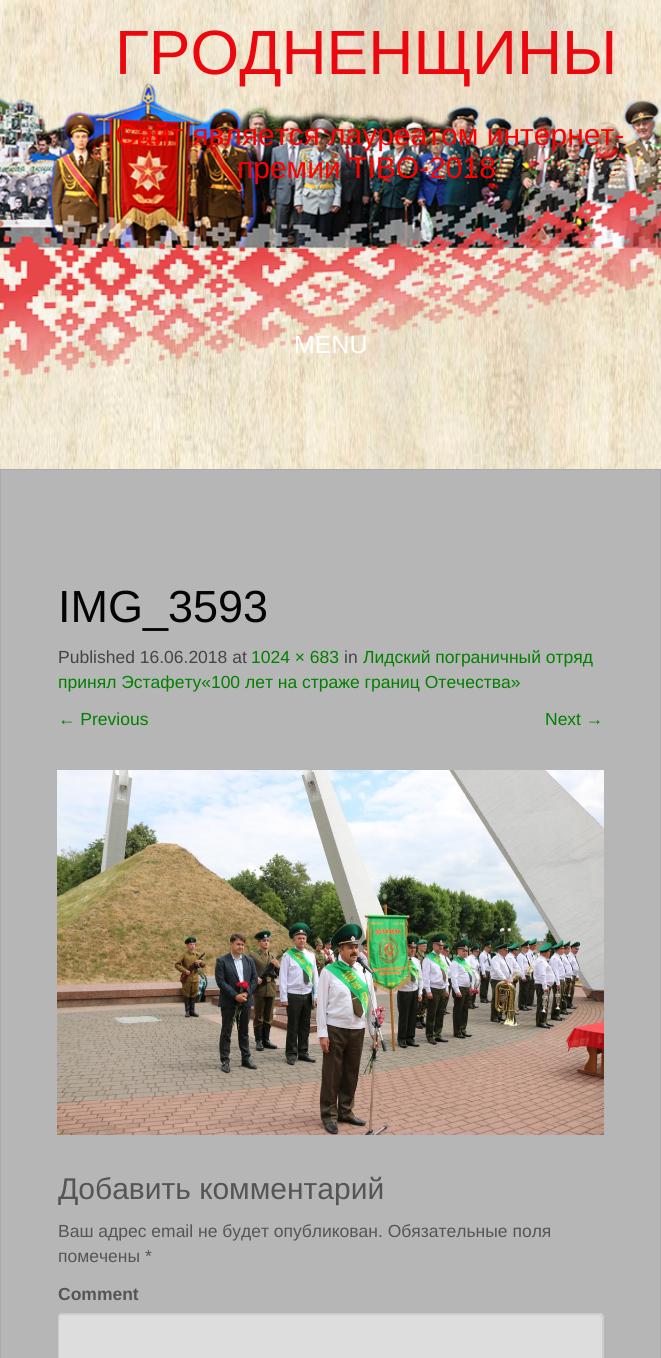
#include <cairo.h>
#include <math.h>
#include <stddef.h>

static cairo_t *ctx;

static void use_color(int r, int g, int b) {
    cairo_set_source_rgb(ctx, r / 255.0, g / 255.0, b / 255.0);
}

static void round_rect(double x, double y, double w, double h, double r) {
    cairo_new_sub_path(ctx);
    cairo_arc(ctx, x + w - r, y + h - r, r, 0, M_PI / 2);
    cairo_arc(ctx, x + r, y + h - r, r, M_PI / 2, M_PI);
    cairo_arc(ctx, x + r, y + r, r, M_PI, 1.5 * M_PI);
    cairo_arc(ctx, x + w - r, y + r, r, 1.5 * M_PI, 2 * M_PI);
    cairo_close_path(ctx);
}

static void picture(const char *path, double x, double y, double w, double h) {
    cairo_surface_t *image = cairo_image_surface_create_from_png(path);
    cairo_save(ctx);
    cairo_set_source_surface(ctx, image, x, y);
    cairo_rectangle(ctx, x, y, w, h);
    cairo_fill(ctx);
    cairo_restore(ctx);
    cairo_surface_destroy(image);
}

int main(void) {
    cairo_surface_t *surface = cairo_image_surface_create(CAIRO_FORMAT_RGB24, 661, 1358);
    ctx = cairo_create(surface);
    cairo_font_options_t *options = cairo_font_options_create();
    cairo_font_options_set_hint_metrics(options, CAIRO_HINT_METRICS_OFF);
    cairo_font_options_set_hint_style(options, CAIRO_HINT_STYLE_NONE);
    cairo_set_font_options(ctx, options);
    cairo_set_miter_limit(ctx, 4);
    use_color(255, 255, 255);
    cairo_paint(ctx);
    picture("img1.png", 0, 0, 661, 469);
    picture("img3.png", 0, 83, 661, 295);
    cairo_select_font_face(ctx, "Liberation Sans", CAIRO_FONT_SLANT_NORMAL, CAIRO_FONT_WEIGHT_NORMAL);
    cairo_set_font_size(ctx, 62.5);
    use_color(236, 7, 14);
    cairo_move_to(ctx, 115, 74);
    cairo_show_text(ctx, "ГРОДНЕНЩИНЫ");
    cairo_set_font_size(ctx, 30);
    use_color(255, 0, 0);
    cairo_move_to(ctx, 115, 145);
    cairo_show_text(ctx, "Сайт является лауреатом интернет-");
    cairo_move_to(ctx, 237, 178);
    cairo_show_text(ctx, "премии TIBO-2018");
    cairo_set_font_size(ctx, 25);
    use_color(255, 255, 255);
    cairo_move_to(ctx, 294, 353);
    cairo_show_text(ctx, "MENU");
    use_color(182, 182, 182);
    cairo_rectangle(ctx, 0.5, 469.5, 660, 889);
    cairo_fill_preserve(ctx);
    use_color(170, 170, 170);
    cairo_set_line_width(ctx, 1);
    cairo_stroke(ctx);
    cairo_set_font_size(ctx, 45);
    use_color(4, 4, 4);
    cairo_move_to(ctx, 58, 622);
    cairo_show_text(ctx, "IMG_3593");
    cairo_set_font_size(ctx, 17.5);
    use_color(68, 68, 68);
    cairo_move_to(ctx, 58, 663);
    cairo_show_text(ctx, "Published 16.06.2018 at");
    use_color(0, 128, 0);
    cairo_move_to(ctx, 251, 663);
    cairo_show_text(ctx, "1024 × 683");
    use_color(68, 68, 68);
    cairo_move_to(ctx, 344, 663);
    cairo_show_text(ctx, "in");
    use_color(0, 128, 0);
    cairo_move_to(ctx, 363, 663);
    cairo_show_text(ctx, "Лидский пограничный отряд");
    cairo_move_to(ctx, 58, 688);
    cairo_show_text(ctx, "принял Эстафету«100 лет на страже границ Отечества»");
    cairo_move_to(ctx, 58, 725);
    cairo_show_text(ctx, "← Previous");
    cairo_move_to(ctx, 545, 725);
    cairo_show_text(ctx, "Next →");
    picture("img2.png", 57, 770, 547, 365);
    cairo_set_font_size(ctx, 30);
    use_color(85, 85, 85);
    cairo_move_to(ctx, 58, 1199);
    cairo_show_text(ctx, "Добавить комментарий");
    cairo_set_font_size(ctx, 17.5);
    cairo_move_to(ctx, 58, 1237);
    cairo_show_text(ctx, "Ваш адрес email не будет опубликован. Обязательные поля");
    cairo_move_to(ctx, 58, 1262);
    cairo_show_text(ctx, "помечены *");
    cairo_select_font_face(ctx, "Liberation Sans", CAIRO_FONT_SLANT_NORMAL, CAIRO_FONT_WEIGHT_BOLD);
    cairo_move_to(ctx, 58, 1300);
    cairo_show_text(ctx, "Comment");
    use_color(221, 221, 221);
    round_rect(58, 1313, 546, 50, 5);
    cairo_fill(ctx);
    use_color(204, 204, 204);
    cairo_new_path(ctx);
    cairo_move_to(ctx, 62, 1315);
    cairo_line_to(ctx, 599, 1315);
    cairo_curve_to(ctx, 601, 1315, 602, 1317, 602, 1319);
    cairo_line_to(ctx, 602, 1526);
    cairo_line_to(ctx, 602, 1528);
    cairo_curve_to(ctx, 602, 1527, 603, 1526, 603, 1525);
    cairo_line_to(ctx, 603, 1318);
    cairo_curve_to(ctx, 603, 1316, 601, 1314, 599, 1314);
    cairo_line_to(ctx, 63, 1314);
    cairo_curve_to(ctx, 61, 1314, 59, 1316, 59, 1318);
    cairo_line_to(ctx, 59, 1319);
    cairo_curve_to(ctx, 59, 1317, 60, 1315, 62, 1315);
    cairo_close_path(ctx);
    cairo_fill(ctx);
    round_rect(58.5, 1313.5, 545, 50, 4.5);
    cairo_stroke(ctx);
    cairo_surface_write_to_png(surface, "result.png");
    cairo_font_options_destroy(options);
    cairo_destroy(ctx);
    cairo_surface_destroy(surface);
    return 0;
}
